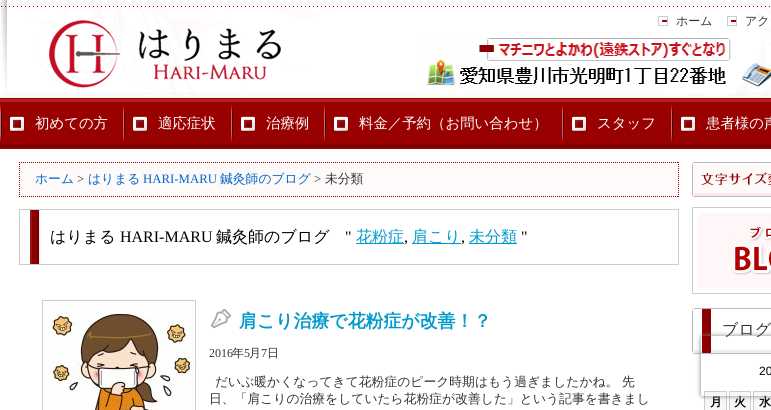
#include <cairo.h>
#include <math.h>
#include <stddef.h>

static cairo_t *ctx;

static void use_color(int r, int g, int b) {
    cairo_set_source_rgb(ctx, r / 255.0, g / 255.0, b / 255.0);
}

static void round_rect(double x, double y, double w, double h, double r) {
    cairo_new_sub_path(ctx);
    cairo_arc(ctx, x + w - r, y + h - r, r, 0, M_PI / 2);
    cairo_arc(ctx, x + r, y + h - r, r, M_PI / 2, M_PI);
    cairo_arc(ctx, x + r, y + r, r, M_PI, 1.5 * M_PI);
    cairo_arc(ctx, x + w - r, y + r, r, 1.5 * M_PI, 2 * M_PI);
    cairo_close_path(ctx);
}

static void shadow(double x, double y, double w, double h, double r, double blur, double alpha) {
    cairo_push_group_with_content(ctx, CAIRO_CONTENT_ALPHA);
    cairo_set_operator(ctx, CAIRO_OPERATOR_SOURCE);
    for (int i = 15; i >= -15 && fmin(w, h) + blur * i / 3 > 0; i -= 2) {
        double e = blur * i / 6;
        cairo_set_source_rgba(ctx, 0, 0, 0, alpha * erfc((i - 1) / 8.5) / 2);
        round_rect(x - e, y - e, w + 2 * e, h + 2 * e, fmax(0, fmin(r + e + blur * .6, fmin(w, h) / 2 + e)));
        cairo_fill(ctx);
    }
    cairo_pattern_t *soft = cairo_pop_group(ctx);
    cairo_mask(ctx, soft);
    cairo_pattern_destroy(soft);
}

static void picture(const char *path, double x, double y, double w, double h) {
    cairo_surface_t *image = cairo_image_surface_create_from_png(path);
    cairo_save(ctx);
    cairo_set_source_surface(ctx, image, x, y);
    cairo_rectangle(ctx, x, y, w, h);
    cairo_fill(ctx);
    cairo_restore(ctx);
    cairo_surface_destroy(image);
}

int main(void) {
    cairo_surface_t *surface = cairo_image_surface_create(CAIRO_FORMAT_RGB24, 771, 410);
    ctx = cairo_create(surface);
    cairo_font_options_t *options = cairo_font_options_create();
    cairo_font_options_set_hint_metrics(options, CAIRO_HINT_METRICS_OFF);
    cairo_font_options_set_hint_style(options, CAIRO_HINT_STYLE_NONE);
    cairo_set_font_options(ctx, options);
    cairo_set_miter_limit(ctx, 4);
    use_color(255, 255, 255);
    cairo_paint(ctx);
    picture("img1.png", 0, 0, 771, 98);
    picture("img2.png", 49, 20, 232, 68);
    picture("img3.png", 658, 16, 10, 10);
    cairo_select_font_face(ctx, "WenQuanYi Zen Hei Medium", CAIRO_FONT_SLANT_NORMAL, CAIRO_FONT_WEIGHT_NORMAL);
    cairo_set_font_size(ctx, 12);
    use_color(51, 51, 51);
    cairo_move_to(ctx, 676, 25);
    cairo_show_text(ctx, "ホーム");
    picture("img3.png", 727, 16, 10, 10);
    cairo_move_to(ctx, 745, 25);
    cairo_show_text(ctx, "アク");
    picture("img4.png", 417, 34, 320, 59);
    picture("img5.png", 741, 63, 30, 24);
    picture("img6.png", 0, 98, 771, 51);
    picture("img7.png", 0, 105, 25, 37);
    cairo_set_font_size(ctx, 14.4);
    use_color(255, 255, 255);
    cairo_move_to(ctx, 35, 128);
    cairo_show_text(ctx, "初めての方");
    picture("img7.png", 123, 105, 25, 37);
    cairo_move_to(ctx, 158, 128);
    cairo_show_text(ctx, "適応症状");
    picture("img7.png", 231, 105, 25, 37);
    cairo_move_to(ctx, 266, 128);
    cairo_show_text(ctx, "治療例");
    picture("img7.png", 324, 105, 25, 37);
    cairo_move_to(ctx, 359, 128);
    cairo_show_text(ctx, "料金／予約（お問い合わせ）");
    picture("img7.png", 562, 105, 25, 37);
    cairo_move_to(ctx, 597, 128);
    cairo_show_text(ctx, "スタッフ");
    picture("img7.png", 671, 105, 25, 37);
    cairo_move_to(ctx, 706, 128);
    cairo_show_text(ctx, "患者様の声");
    use_color(125, 0, 0);
    cairo_rectangle(ctx, 0, 144, 771, 3);
    cairo_fill(ctx);
    use_color(254, 250, 250);
    cairo_rectangle(ctx, 19, 162, 660, 35);
    cairo_fill(ctx);
    cairo_new_path(ctx);
    cairo_move_to(ctx, 19, 162.5);
    cairo_line_to(ctx, 679, 162.5);
    use_color(153, 0, 0);
    cairo_set_line_width(ctx, 1);
    cairo_set_dash(ctx, (double[]){1, 1}, 2, 0);
    cairo_stroke(ctx);
    cairo_new_path(ctx);
    cairo_move_to(ctx, 678.5, 162);
    cairo_line_to(ctx, 678.5, 197);
    cairo_stroke(ctx);
    cairo_new_path(ctx);
    cairo_move_to(ctx, 19, 196.5);
    cairo_line_to(ctx, 679, 196.5);
    cairo_stroke(ctx);
    cairo_new_path(ctx);
    cairo_move_to(ctx, 19.5, 162);
    cairo_line_to(ctx, 19.5, 197);
    cairo_stroke(ctx);
    cairo_set_font_size(ctx, 12.8);
    use_color(0, 102, 204);
    cairo_move_to(ctx, 35, 183);
    cairo_show_text(ctx, "ホーム");
    cairo_select_font_face(ctx, "Liberation Serif", CAIRO_FONT_SLANT_NORMAL, CAIRO_FONT_WEIGHT_NORMAL);
    use_color(51, 51, 51);
    cairo_move_to(ctx, 77, 183);
    cairo_show_text(ctx, ">");
    cairo_select_font_face(ctx, "WenQuanYi Zen Hei Medium", CAIRO_FONT_SLANT_NORMAL, CAIRO_FONT_WEIGHT_NORMAL);
    use_color(0, 102, 204);
    cairo_move_to(ctx, 88, 183);
    cairo_show_text(ctx, "はりまる");
    cairo_select_font_face(ctx, "Liberation Serif", CAIRO_FONT_SLANT_NORMAL, CAIRO_FONT_WEIGHT_NORMAL);
    cairo_move_to(ctx, 143, 183);
    cairo_show_text(ctx, "HARI-MARU");
    cairo_select_font_face(ctx, "WenQuanYi Zen Hei Medium", CAIRO_FONT_SLANT_NORMAL, CAIRO_FONT_WEIGHT_NORMAL);
    cairo_move_to(ctx, 220, 183);
    cairo_show_text(ctx, "鍼灸師のブログ");
    cairo_select_font_face(ctx, "Liberation Serif", CAIRO_FONT_SLANT_NORMAL, CAIRO_FONT_WEIGHT_NORMAL);
    use_color(51, 51, 51);
    cairo_move_to(ctx, 314, 183);
    cairo_show_text(ctx, ">");
    cairo_select_font_face(ctx, "WenQuanYi Zen Hei Medium", CAIRO_FONT_SLANT_NORMAL, CAIRO_FONT_WEIGHT_NORMAL);
    cairo_move_to(ctx, 325, 183);
    cairo_show_text(ctx, "未分類");
    picture("img8.png", 30, 210, 11, 54);
    cairo_rectangle(ctx, 19.5, 209.5, 659, 55);
    use_color(204, 204, 204);
    cairo_set_dash(ctx, NULL, 0, 0);
    cairo_stroke(ctx);
    cairo_set_font_size(ctx, 16);
    use_color(0, 0, 0);
    cairo_move_to(ctx, 50, 242);
    cairo_show_text(ctx, "はりまる");
    cairo_select_font_face(ctx, "Liberation Serif", CAIRO_FONT_SLANT_NORMAL, CAIRO_FONT_WEIGHT_NORMAL);
    cairo_move_to(ctx, 120, 242);
    cairo_show_text(ctx, "HARI-MARU");
    cairo_select_font_face(ctx, "WenQuanYi Zen Hei Medium", CAIRO_FONT_SLANT_NORMAL, CAIRO_FONT_WEIGHT_NORMAL);
    cairo_move_to(ctx, 216, 242);
    cairo_show_text(ctx, "鍼灸師のブログ");
    cairo_select_font_face(ctx, "Liberation Serif", CAIRO_FONT_SLANT_NORMAL, CAIRO_FONT_WEIGHT_NORMAL);
    cairo_move_to(ctx, 345, 242);
    cairo_show_text(ctx, "\"");
    use_color(0, 153, 204);
    cairo_rectangle(ctx, 356, 243, 48, 1);
    cairo_fill(ctx);
    cairo_select_font_face(ctx, "WenQuanYi Zen Hei Medium", CAIRO_FONT_SLANT_NORMAL, CAIRO_FONT_WEIGHT_NORMAL);
    cairo_move_to(ctx, 356, 242);
    cairo_show_text(ctx, "花粉症");
    cairo_rectangle(ctx, 412, 243, 49, 1);
    cairo_fill(ctx);
    cairo_move_to(ctx, 412, 242);
    cairo_show_text(ctx, "肩こり");
    cairo_rectangle(ctx, 469, 243, 48, 1);
    cairo_fill(ctx);
    cairo_move_to(ctx, 469, 242);
    cairo_show_text(ctx, "未分類");
    cairo_select_font_face(ctx, "Liberation Serif", CAIRO_FONT_SLANT_NORMAL, CAIRO_FONT_WEIGHT_NORMAL);
    use_color(0, 0, 0);
    cairo_move_to(ctx, 521, 242);
    cairo_show_text(ctx, "\"");
    cairo_move_to(ctx, 404, 242);
    cairo_show_text(ctx, ",");
    cairo_move_to(ctx, 461, 242);
    cairo_show_text(ctx, ",");
    cairo_rectangle(ctx, 42.5, 300.5, 153, 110);
    use_color(204, 204, 204);
    cairo_stroke(ctx);
    picture("img9.png", 44, 302, 150, 108);
    picture("img10.png", 211, 309, 20, 20);
    cairo_select_font_face(ctx, "WenQuanYi Zen Hei", CAIRO_FONT_SLANT_NORMAL, CAIRO_FONT_WEIGHT_BOLD);
    cairo_set_font_size(ctx, 17.9);
    use_color(0, 153, 204);
    cairo_move_to(ctx, 239, 327);
    cairo_show_text(ctx, "肩こり治療で花粉症が改善！？");
    cairo_select_font_face(ctx, "Liberation Serif", CAIRO_FONT_SLANT_NORMAL, CAIRO_FONT_WEIGHT_NORMAL);
    cairo_set_font_size(ctx, 12);
    use_color(51, 51, 51);
    cairo_move_to(ctx, 209, 357);
    cairo_show_text(ctx, "2016");
    cairo_select_font_face(ctx, "WenQuanYi Zen Hei Medium", CAIRO_FONT_SLANT_NORMAL, CAIRO_FONT_WEIGHT_NORMAL);
    cairo_move_to(ctx, 232, 357);
    cairo_show_text(ctx, "年");
    cairo_select_font_face(ctx, "Liberation Serif", CAIRO_FONT_SLANT_NORMAL, CAIRO_FONT_WEIGHT_NORMAL);
    cairo_move_to(ctx, 244, 357);
    cairo_show_text(ctx, "5");
    cairo_select_font_face(ctx, "WenQuanYi Zen Hei Medium", CAIRO_FONT_SLANT_NORMAL, CAIRO_FONT_WEIGHT_NORMAL);
    cairo_move_to(ctx, 249, 357);
    cairo_show_text(ctx, "月");
    cairo_select_font_face(ctx, "Liberation Serif", CAIRO_FONT_SLANT_NORMAL, CAIRO_FONT_WEIGHT_NORMAL);
    cairo_move_to(ctx, 261, 357);
    cairo_show_text(ctx, "7");
    cairo_select_font_face(ctx, "WenQuanYi Zen Hei Medium", CAIRO_FONT_SLANT_NORMAL, CAIRO_FONT_WEIGHT_NORMAL);
    cairo_move_to(ctx, 267, 357);
    cairo_show_text(ctx, "日");
    cairo_set_font_size(ctx, 12.8);
    cairo_move_to(ctx, 215, 386);
    cairo_show_text(ctx, "だいぶ暖かくなってきて花粉症のピーク時期はもう過ぎましたかね。");
    cairo_move_to(ctx, 622, 386);
    cairo_show_text(ctx, "先");
    cairo_move_to(ctx, 209, 403);
    cairo_show_text(ctx, "日、「肩こりの治療をしていたら花粉症が改善した」という記事を書きまし");
    picture("img11.png", 692, 162, 79, 35);
    picture("img12.png", 692, 207, 79, 87);
    picture("img13.png", 692, 308, 79, 36);
    cairo_set_font_size(ctx, 16);
    cairo_move_to(ctx, 722, 335);
    cairo_show_text(ctx, "ブログ");
    picture("img14.png", 692, 344, 79, 10);
    cairo_select_font_face(ctx, "Liberation Sans", CAIRO_FONT_SLANT_NORMAL, CAIRO_FONT_WEIGHT_NORMAL);
    cairo_set_font_size(ctx, 12);
    use_color(0, 0, 0);
    cairo_move_to(ctx, 759, 375);
    cairo_show_text(ctx, "20");
    use_color(247, 247, 247);
    cairo_rectangle(ctx, 704.5, 391.5, 22, 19);
    cairo_fill_preserve(ctx);
    use_color(204, 204, 204);
    cairo_stroke(ctx);
    cairo_select_font_face(ctx, "WenQuanYi Zen Hei", CAIRO_FONT_SLANT_NORMAL, CAIRO_FONT_WEIGHT_BOLD);
    use_color(0, 0, 0);
    cairo_move_to(ctx, 710, 406);
    cairo_show_text(ctx, "月");
    use_color(247, 247, 247);
    cairo_rectangle(ctx, 729.5, 391.5, 21, 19);
    cairo_fill_preserve(ctx);
    use_color(204, 204, 204);
    cairo_stroke(ctx);
    use_color(0, 0, 0);
    cairo_move_to(ctx, 734, 406);
    cairo_show_text(ctx, "火");
    use_color(247, 247, 247);
    cairo_rectangle(ctx, 753.5, 391.5, 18, 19);
    cairo_fill_preserve(ctx);
    use_color(204, 204, 204);
    cairo_stroke(ctx);
    use_color(0, 0, 0);
    cairo_move_to(ctx, 759, 406);
    cairo_show_text(ctx, "水");
    cairo_save(ctx);
    cairo_set_fill_rule(ctx, CAIRO_FILL_RULE_EVEN_ODD);
    cairo_new_path(ctx);
    cairo_move_to(ctx, 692, 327);
    cairo_line_to(ctx, 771, 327);
    cairo_line_to(ctx, 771, 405);
    cairo_line_to(ctx, 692, 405);
    cairo_close_path(ctx);
    cairo_move_to(ctx, 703, 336);
    cairo_line_to(ctx, 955, 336);
    cairo_curve_to(ctx, 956, 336, 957, 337, 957, 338);
    cairo_line_to(ctx, 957, 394);
    cairo_curve_to(ctx, 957, 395, 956, 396, 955, 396);
    cairo_line_to(ctx, 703, 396);
    cairo_curve_to(ctx, 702, 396, 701, 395, 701, 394);
    cairo_line_to(ctx, 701, 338);
    cairo_curve_to(ctx, 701, 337, 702, 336, 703, 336);
    cairo_close_path(ctx);
    cairo_clip(ctx);
    use_color(128, 128, 128);
    shadow(701, 336, 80, 60, 2, 2.5, 1);
    cairo_restore(ctx);
    cairo_surface_write_to_png(surface, "result.png");
    cairo_font_options_destroy(options);
    cairo_destroy(ctx);
    cairo_surface_destroy(surface);
    return 0;
}
